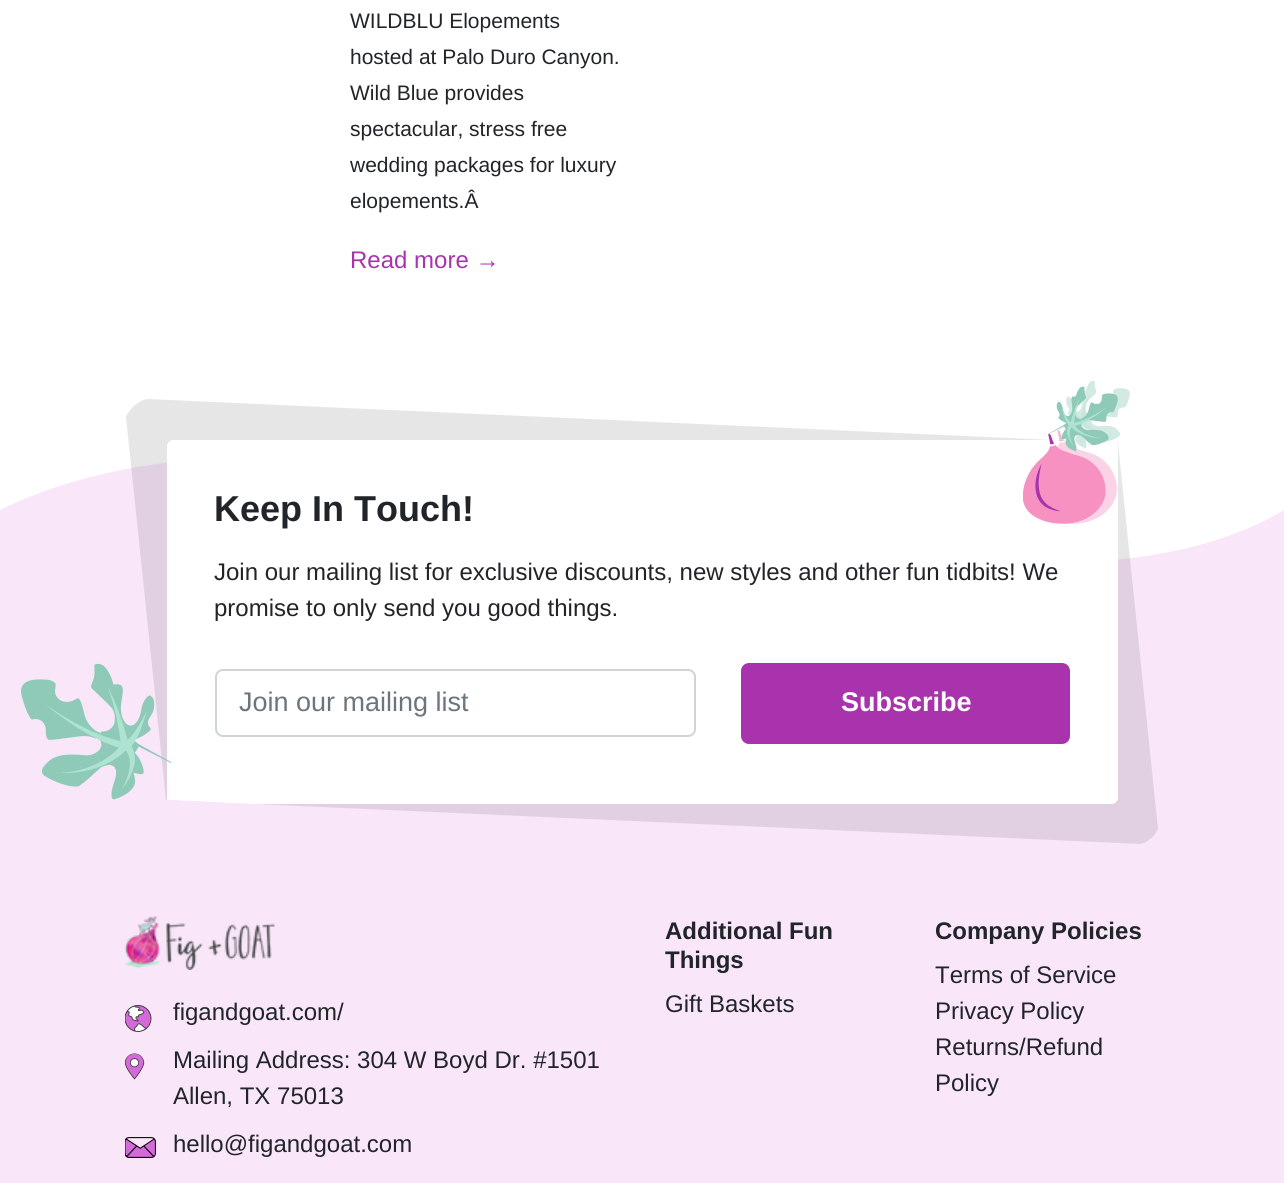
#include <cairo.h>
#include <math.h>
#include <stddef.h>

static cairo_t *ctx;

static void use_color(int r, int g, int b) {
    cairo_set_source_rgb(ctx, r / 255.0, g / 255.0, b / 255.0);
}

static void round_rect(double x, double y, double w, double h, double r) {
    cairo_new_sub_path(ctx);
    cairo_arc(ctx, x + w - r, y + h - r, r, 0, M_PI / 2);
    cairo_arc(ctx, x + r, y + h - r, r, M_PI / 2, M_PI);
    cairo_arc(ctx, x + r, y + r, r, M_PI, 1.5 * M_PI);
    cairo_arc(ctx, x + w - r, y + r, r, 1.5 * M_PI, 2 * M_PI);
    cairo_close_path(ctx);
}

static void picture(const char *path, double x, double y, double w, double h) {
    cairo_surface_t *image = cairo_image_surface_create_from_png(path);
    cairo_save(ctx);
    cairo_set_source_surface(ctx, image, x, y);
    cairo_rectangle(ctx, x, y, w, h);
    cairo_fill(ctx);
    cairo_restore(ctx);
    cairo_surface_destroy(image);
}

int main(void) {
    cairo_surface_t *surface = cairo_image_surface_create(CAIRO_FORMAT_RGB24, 1284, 1183);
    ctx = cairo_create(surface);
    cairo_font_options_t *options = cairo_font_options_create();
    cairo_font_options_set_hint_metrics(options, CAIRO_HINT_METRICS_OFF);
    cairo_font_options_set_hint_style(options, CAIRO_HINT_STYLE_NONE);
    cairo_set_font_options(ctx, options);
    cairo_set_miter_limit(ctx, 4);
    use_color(255, 255, 255);
    cairo_paint(ctx);
    cairo_select_font_face(ctx, "Liberation Sans", CAIRO_FONT_SLANT_NORMAL, CAIRO_FONT_WEIGHT_NORMAL);
    cairo_set_font_size(ctx, 21);
    use_color(33, 37, 41);
    cairo_move_to(ctx, 350, 28);
    cairo_show_text(ctx, "WILDBLU Elopements");
    cairo_move_to(ctx, 350, 64);
    cairo_show_text(ctx, "hosted at Palo Duro Canyon.");
    cairo_move_to(ctx, 350, 100);
    cairo_show_text(ctx, "Wild Blue provides");
    cairo_move_to(ctx, 350, 136);
    cairo_show_text(ctx, "spectacular, stress free");
    cairo_move_to(ctx, 350, 172);
    cairo_show_text(ctx, "wedding packages for luxury");
    cairo_move_to(ctx, 350, 208);
    cairo_show_text(ctx, "elopements.Â");
    cairo_set_font_size(ctx, 24);
    use_color(168, 51, 172);
    cairo_move_to(ctx, 350, 268);
    cairo_show_text(ctx, "Read more →");
    use_color(249, 231, 249);
    cairo_rectangle(ctx, 0, 462, 1284, 721);
    cairo_fill(ctx);
    use_color(255, 255, 255);
    cairo_new_path(ctx);
    cairo_move_to(ctx, 1284, 510);
    cairo_curve_to(ctx, 1166, 581, 959, 581, 663, 510);
    cairo_curve_to(ctx, 367, 438, 146, 438, 0, 510);
    cairo_line_to(ctx, 0, 399);
    cairo_line_to(ctx, 1284, 399);
    cairo_close_path(ctx);
    cairo_fill(ctx);
    cairo_set_source_rgba(ctx, 0, 0, 0, 0.1);
    cairo_new_path(ctx);
    cairo_move_to(ctx, 1141, 844);
    cairo_line_to(ctx, 166, 800);
    cairo_line_to(ctx, 126, 417);
    cairo_curve_to(ctx, 130, 408, 138, 401, 147, 399);
    cairo_line_to(ctx, 1118, 443);
    cairo_line_to(ctx, 1158, 829);
    cairo_curve_to(ctx, 1155, 836, 1148, 842, 1141, 844);
    cairo_close_path(ctx);
    cairo_fill(ctx);
    use_color(255, 255, 255);
    cairo_new_path(ctx);
    cairo_move_to(ctx, 173, 440);
    cairo_line_to(ctx, 1051, 440);
    cairo_line_to(ctx, 1117, 443);
    cairo_line_to(ctx, 1118, 446);
    cairo_line_to(ctx, 1118, 798);
    cairo_curve_to(ctx, 1118, 801, 1115, 804, 1112, 804);
    cairo_line_to(ctx, 252, 804);
    cairo_line_to(ctx, 167, 800);
    cairo_line_to(ctx, 167, 798);
    cairo_line_to(ctx, 167, 446);
    cairo_curve_to(ctx, 167, 443, 170, 440, 173, 440);
    cairo_close_path(ctx);
    cairo_fill(ctx);
    picture("img1.png", 1023, 381, 107, 143);
    cairo_select_font_face(ctx, "Liberation Sans", CAIRO_FONT_SLANT_NORMAL, CAIRO_FONT_WEIGHT_BOLD);
    cairo_set_font_size(ctx, 36);
    use_color(33, 37, 41);
    cairo_move_to(ctx, 214, 521);
    cairo_show_text(ctx, "Keep In Touch!");
    cairo_select_font_face(ctx, "Liberation Sans", CAIRO_FONT_SLANT_NORMAL, CAIRO_FONT_WEIGHT_NORMAL);
    cairo_set_font_size(ctx, 24);
    cairo_move_to(ctx, 214, 580);
    cairo_show_text(ctx, "Join our mailing list for exclusive discounts, new styles and other fun tidbits! We");
    cairo_move_to(ctx, 214, 616);
    cairo_show_text(ctx, "promise to only send you good things.");
    round_rect(216, 670, 479, 66, 7);
    use_color(206, 212, 218);
    cairo_stroke(ctx);
    cairo_set_font_size(ctx, 27);
    use_color(108, 117, 125);
    cairo_move_to(ctx, 239, 711);
    cairo_show_text(ctx, "Join our mailing list");
    use_color(168, 51, 172);
    round_rect(742.5, 664.5, 326, 78, 6.5);
    cairo_fill_preserve(ctx);
    cairo_set_line_width(ctx, 3);
    cairo_stroke(ctx);
    cairo_select_font_face(ctx, "Liberation Sans", CAIRO_FONT_SLANT_NORMAL, CAIRO_FONT_WEIGHT_BOLD);
    use_color(255, 255, 255);
    cairo_move_to(ctx, 841, 711);
    cairo_show_text(ctx, "Subscribe");
    picture("img2.png", 21, 663, 151, 137);
    picture("img3.png", 124, 916, 151, 54);
    picture("img4.png", 125, 1005, 27, 27);
    cairo_select_font_face(ctx, "Liberation Sans", CAIRO_FONT_SLANT_NORMAL, CAIRO_FONT_WEIGHT_NORMAL);
    cairo_set_font_size(ctx, 24);
    use_color(33, 37, 41);
    cairo_move_to(ctx, 173, 1020);
    cairo_show_text(ctx, "figandgoat.com/");
    picture("img5.png", 125, 1053, 20, 27);
    cairo_move_to(ctx, 173, 1068);
    cairo_show_text(ctx, "Mailing Address: 304 W Boyd Dr. #1501");
    cairo_move_to(ctx, 173, 1104);
    cairo_show_text(ctx, "Allen, TX 75013");
    picture("img6.png", 125, 1137, 31, 21);
    cairo_move_to(ctx, 173, 1152);
    cairo_show_text(ctx, "hello@figandgoat.com");
    cairo_select_font_face(ctx, "Liberation Sans", CAIRO_FONT_SLANT_NORMAL, CAIRO_FONT_WEIGHT_BOLD);
    cairo_move_to(ctx, 665, 939);
    cairo_show_text(ctx, "Additional Fun");
    cairo_move_to(ctx, 665, 968);
    cairo_show_text(ctx, "Things");
    cairo_select_font_face(ctx, "Liberation Sans", CAIRO_FONT_SLANT_NORMAL, CAIRO_FONT_WEIGHT_NORMAL);
    cairo_move_to(ctx, 665, 1012);
    cairo_show_text(ctx, "Gift Baskets");
    cairo_select_font_face(ctx, "Liberation Sans", CAIRO_FONT_SLANT_NORMAL, CAIRO_FONT_WEIGHT_BOLD);
    cairo_move_to(ctx, 935, 939);
    cairo_show_text(ctx, "Company Policies");
    cairo_select_font_face(ctx, "Liberation Sans", CAIRO_FONT_SLANT_NORMAL, CAIRO_FONT_WEIGHT_NORMAL);
    cairo_move_to(ctx, 935, 983);
    cairo_show_text(ctx, "Terms of Service");
    cairo_move_to(ctx, 935, 1019);
    cairo_show_text(ctx, "Privacy Policy");
    cairo_move_to(ctx, 935, 1055);
    cairo_show_text(ctx, "Returns/Refund");
    cairo_move_to(ctx, 935, 1091);
    cairo_show_text(ctx, "Policy");
    cairo_surface_write_to_png(surface, "result.png");
    cairo_font_options_destroy(options);
    cairo_destroy(ctx);
    cairo_surface_destroy(surface);
    return 0;
}
